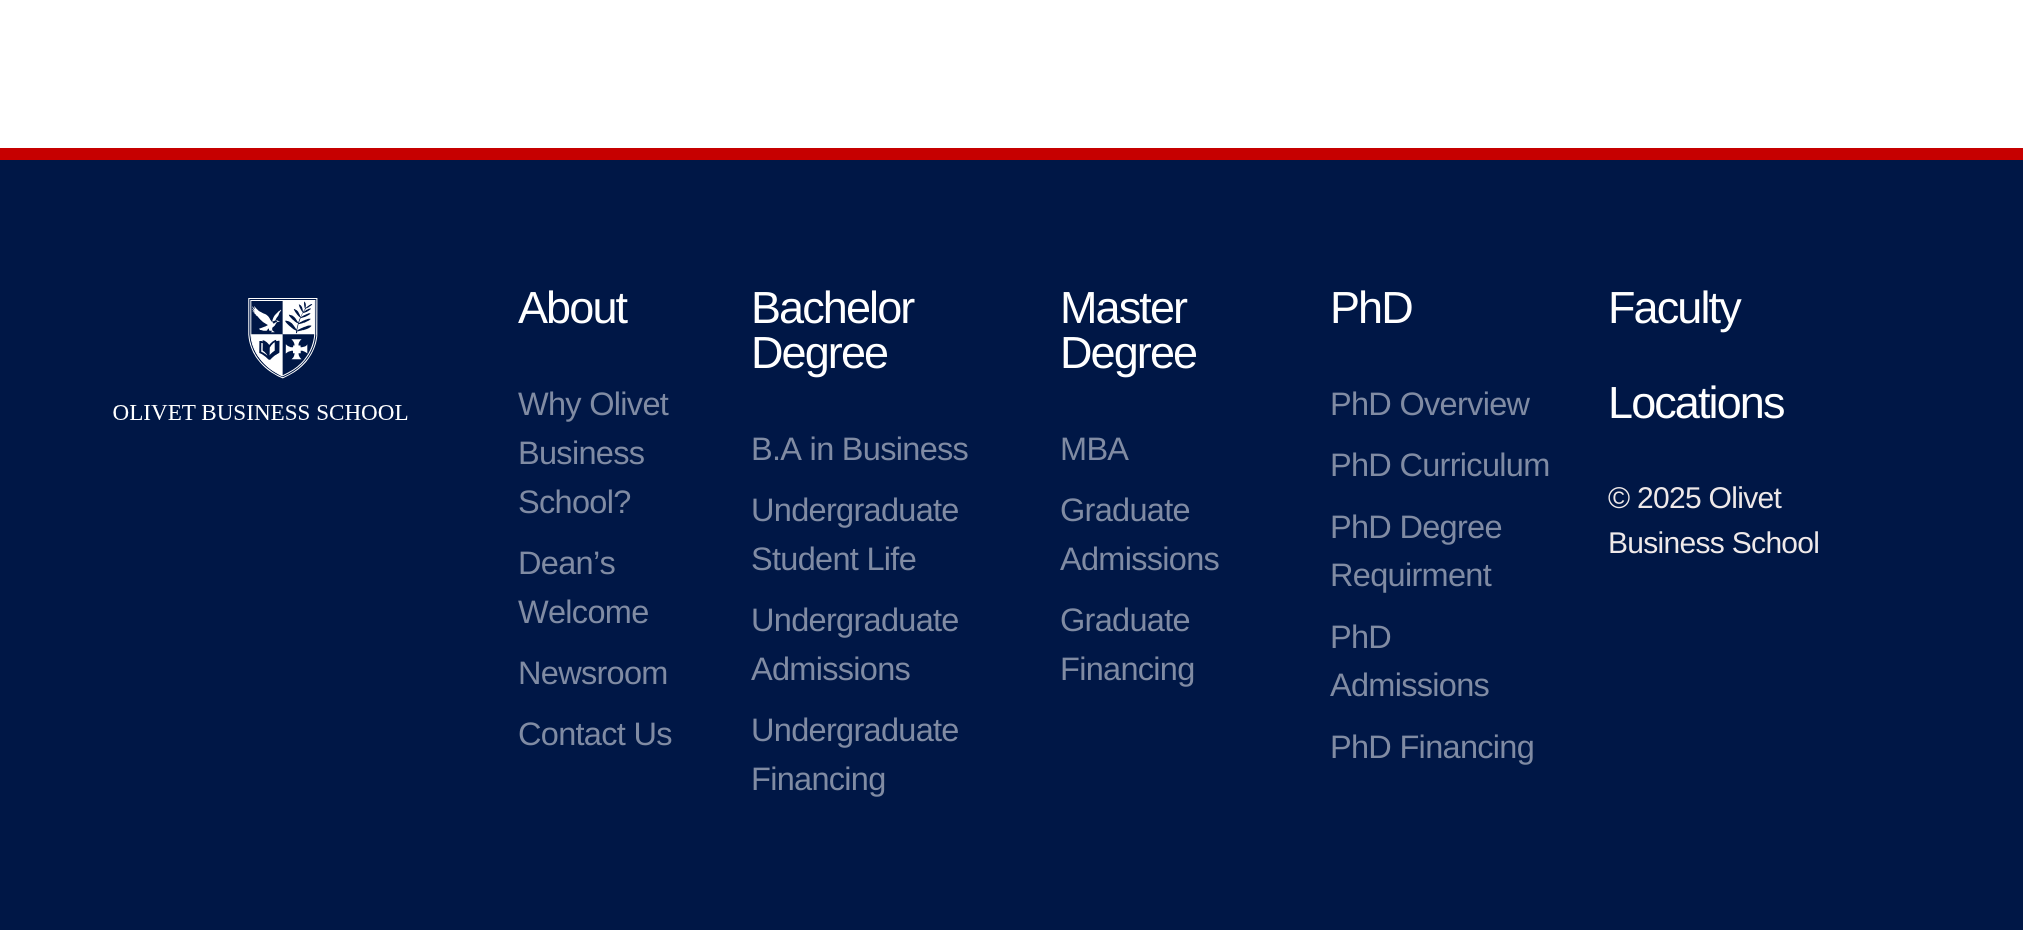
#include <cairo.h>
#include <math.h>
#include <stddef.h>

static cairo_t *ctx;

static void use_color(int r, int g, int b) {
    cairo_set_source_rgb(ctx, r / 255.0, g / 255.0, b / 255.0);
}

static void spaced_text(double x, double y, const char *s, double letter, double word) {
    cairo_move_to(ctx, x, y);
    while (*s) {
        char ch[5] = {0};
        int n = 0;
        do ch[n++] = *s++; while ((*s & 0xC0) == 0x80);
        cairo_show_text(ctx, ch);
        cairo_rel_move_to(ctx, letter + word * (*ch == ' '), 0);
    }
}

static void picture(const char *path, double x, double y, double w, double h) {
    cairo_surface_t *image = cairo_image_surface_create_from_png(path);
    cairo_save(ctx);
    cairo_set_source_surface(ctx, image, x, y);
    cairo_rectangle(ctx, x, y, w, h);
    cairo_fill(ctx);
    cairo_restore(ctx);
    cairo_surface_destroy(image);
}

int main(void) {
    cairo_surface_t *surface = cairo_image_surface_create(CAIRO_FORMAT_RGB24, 2023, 930);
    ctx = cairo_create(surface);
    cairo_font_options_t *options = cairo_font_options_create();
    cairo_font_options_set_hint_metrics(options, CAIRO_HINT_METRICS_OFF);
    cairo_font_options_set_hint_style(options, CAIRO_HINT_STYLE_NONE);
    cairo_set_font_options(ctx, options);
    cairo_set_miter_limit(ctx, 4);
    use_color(255, 255, 255);
    cairo_paint(ctx);
    use_color(198, 0, 0);
    cairo_rectangle(ctx, 0, 148, 2023, 12);
    cairo_fill(ctx);
    use_color(0, 23, 70);
    cairo_rectangle(ctx, 0, 160, 2023, 770);
    cairo_fill(ctx);
    picture("img1.png", 113, 298, 295, 122);
    cairo_select_font_face(ctx, "Liberation Sans", CAIRO_FONT_SLANT_NORMAL, CAIRO_FONT_WEIGHT_NORMAL);
    cairo_set_font_size(ctx, 45);
    use_color(255, 255, 255);
    spaced_text(518, 323, "About", -1.9, 0);
    cairo_set_font_size(ctx, 32.5);
    use_color(128, 139, 163);
    spaced_text(518, 415, "Why Olivet", -0.7, 0);
    spaced_text(518, 464, "Business", -0.7, 0);
    spaced_text(518, 513, "School?", -0.7, 0);
    spaced_text(518, 574, "Dean’s", -0.7, 0);
    spaced_text(518, 623, "Welcome", -0.7, 0);
    spaced_text(518, 684, "Newsroom", -0.7, 0);
    spaced_text(518, 745, "Contact Us", -0.7, 0);
    cairo_set_font_size(ctx, 45);
    use_color(255, 255, 255);
    spaced_text(751, 323, "Bachelor", -1.9, 0);
    spaced_text(751, 368, "Degree", -1.9, 0);
    cairo_set_font_size(ctx, 32.5);
    use_color(128, 139, 163);
    spaced_text(751, 460, "B.A in Business", -0.7, 0);
    spaced_text(751, 521, "Undergraduate", -0.7, 0);
    spaced_text(751, 570, "Student Life", -0.7, 0);
    spaced_text(751, 631, "Undergraduate", -0.7, 0);
    spaced_text(751, 680, "Admissions", -0.7, 0);
    spaced_text(751, 741, "Undergraduate", -0.7, 0);
    spaced_text(751, 790, "Financing", -0.7, 0);
    cairo_set_font_size(ctx, 45);
    use_color(255, 255, 255);
    spaced_text(1060, 323, "Master", -1.9, 0);
    spaced_text(1060, 368, "Degree", -1.9, 0);
    cairo_set_font_size(ctx, 32.5);
    use_color(128, 139, 163);
    spaced_text(1060, 460, "MBA", -0.7, 0);
    spaced_text(1060, 521, "Graduate", -0.7, 0);
    spaced_text(1060, 570, "Admissions", -0.7, 0);
    spaced_text(1060, 631, "Graduate", -0.7, 0);
    spaced_text(1060, 680, "Financing", -0.7, 0);
    cairo_set_font_size(ctx, 45);
    use_color(255, 255, 255);
    spaced_text(1330, 323, "PhD", -1.9, 0);
    cairo_set_font_size(ctx, 32.5);
    use_color(128, 139, 163);
    spaced_text(1330, 415, "PhD Overview", -0.7, 0);
    spaced_text(1330, 476, "PhD Curriculum", -0.7, 0);
    spaced_text(1330, 538, "PhD Degree", -0.7, 0);
    spaced_text(1330, 586, "Requirment", -0.7, 0);
    spaced_text(1330, 648, "PhD", -0.7, 0);
    spaced_text(1330, 696, "Admissions", -0.7, 0);
    spaced_text(1330, 758, "PhD Financing", -0.7, 0);
    cairo_set_font_size(ctx, 45);
    use_color(255, 255, 255);
    spaced_text(1608, 323, "Faculty", -1.9, 0);
    spaced_text(1608, 418, "Locations", -1.9, 0);
    cairo_set_font_size(ctx, 30);
    use_color(239, 233, 233);
    spaced_text(1608, 508, "© 2025 Olivet", -0.7, 0);
    spaced_text(1608, 553, "Business School", -0.7, 0);
    cairo_surface_write_to_png(surface, "result.png");
    cairo_font_options_destroy(options);
    cairo_destroy(ctx);
    cairo_surface_destroy(surface);
    return 0;
}
